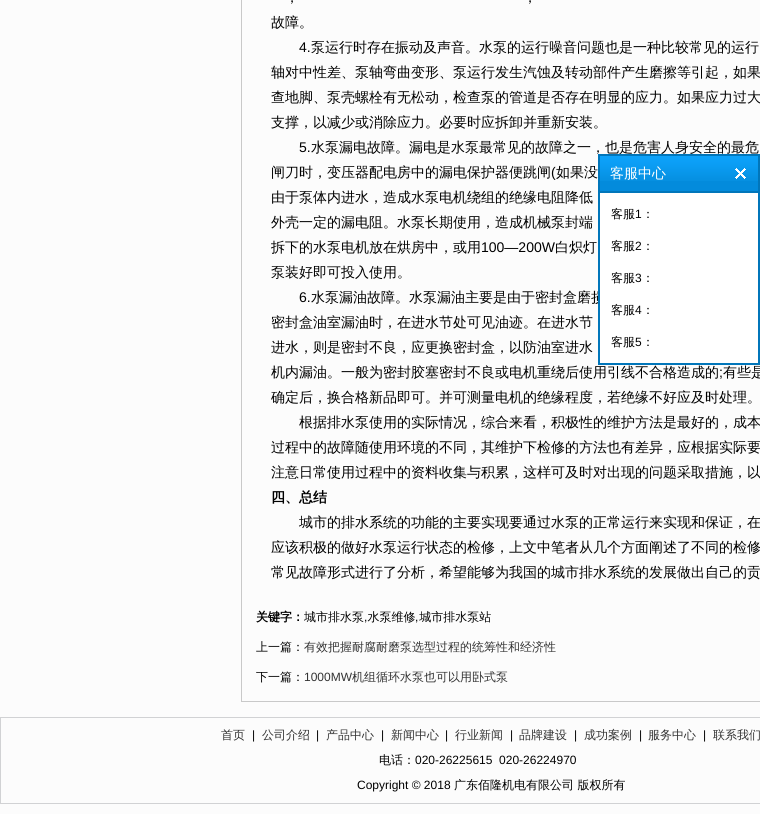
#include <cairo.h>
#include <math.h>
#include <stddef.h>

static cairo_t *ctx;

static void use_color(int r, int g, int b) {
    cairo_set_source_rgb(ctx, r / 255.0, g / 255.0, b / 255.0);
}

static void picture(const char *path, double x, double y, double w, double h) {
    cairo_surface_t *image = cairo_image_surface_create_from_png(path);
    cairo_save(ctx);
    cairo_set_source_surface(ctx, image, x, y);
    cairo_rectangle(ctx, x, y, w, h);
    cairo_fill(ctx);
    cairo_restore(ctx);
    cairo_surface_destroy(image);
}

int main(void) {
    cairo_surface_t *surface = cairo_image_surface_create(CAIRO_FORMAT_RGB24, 760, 814);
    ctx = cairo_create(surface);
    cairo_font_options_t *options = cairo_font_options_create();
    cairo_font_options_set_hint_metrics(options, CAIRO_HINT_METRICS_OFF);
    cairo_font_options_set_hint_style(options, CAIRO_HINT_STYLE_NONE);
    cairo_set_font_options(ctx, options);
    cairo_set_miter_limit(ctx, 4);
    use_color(252, 252, 252);
    cairo_paint(ctx);
    use_color(201, 201, 201);
    cairo_rectangle(ctx, 241, 701, 519, 1);
    cairo_fill(ctx);
    cairo_rectangle(ctx, 241, 0, 1, 702);
    cairo_fill(ctx);
    cairo_select_font_face(ctx, "WenQuanYi Zen Hei Medium", CAIRO_FONT_SLANT_NORMAL, CAIRO_FONT_WEIGHT_NORMAL);
    cairo_set_font_size(ctx, 14);
    use_color(0, 0, 0);
    cairo_move_to(ctx, 285, 2);
    cairo_show_text(ctx, "，");
    cairo_move_to(ctx, 523, 2);
    cairo_show_text(ctx, "，");
    cairo_move_to(ctx, 271, 27);
    cairo_show_text(ctx, "故障。");
    cairo_select_font_face(ctx, "Liberation Sans", CAIRO_FONT_SLANT_NORMAL, CAIRO_FONT_WEIGHT_NORMAL);
    cairo_move_to(ctx, 299, 52);
    cairo_show_text(ctx, "4.");
    cairo_select_font_face(ctx, "WenQuanYi Zen Hei Medium", CAIRO_FONT_SLANT_NORMAL, CAIRO_FONT_WEIGHT_NORMAL);
    cairo_move_to(ctx, 311, 52);
    cairo_show_text(ctx, "泵运行时存在振动及声音。水泵的运行噪音问题也是一种比较常见的运行");
    cairo_move_to(ctx, 271, 77);
    cairo_show_text(ctx, "轴对中性差、泵轴弯曲变形、泵运行发生汽蚀及转动部件产生磨擦等引起，如果");
    cairo_move_to(ctx, 271, 102);
    cairo_show_text(ctx, "查地脚、泵壳螺栓有无松动，检查泵的管道是否存在明显的应力。如果应力过大");
    cairo_move_to(ctx, 271, 127);
    cairo_show_text(ctx, "支撑，以减少或消除应力。必要时应拆卸并重新安装。");
    cairo_select_font_face(ctx, "Liberation Sans", CAIRO_FONT_SLANT_NORMAL, CAIRO_FONT_WEIGHT_NORMAL);
    cairo_move_to(ctx, 299, 152);
    cairo_show_text(ctx, "5.");
    cairo_select_font_face(ctx, "WenQuanYi Zen Hei Medium", CAIRO_FONT_SLANT_NORMAL, CAIRO_FONT_WEIGHT_NORMAL);
    cairo_move_to(ctx, 311, 152);
    cairo_show_text(ctx, "水泵漏电故障。漏电是水泵最常见的故障之一，也是危害人身安全的最危");
    cairo_move_to(ctx, 271, 177);
    cairo_show_text(ctx, "闸刀时，变压器配电房中的漏电保护器便跳闸");
    cairo_select_font_face(ctx, "Liberation Sans", CAIRO_FONT_SLANT_NORMAL, CAIRO_FONT_WEIGHT_NORMAL);
    cairo_move_to(ctx, 551, 177);
    cairo_show_text(ctx, "(");
    cairo_select_font_face(ctx, "WenQuanYi Zen Hei Medium", CAIRO_FONT_SLANT_NORMAL, CAIRO_FONT_WEIGHT_NORMAL);
    cairo_move_to(ctx, 556, 177);
    cairo_show_text(ctx, "如果没");
    cairo_move_to(ctx, 271, 202);
    cairo_show_text(ctx, "由于泵体内进水，造成水泵电机绕组的绝缘电阻降低");
    cairo_move_to(ctx, 271, 227);
    cairo_show_text(ctx, "外壳一定的漏电阻。水泵长期使用，造成机械泵封端");
    cairo_move_to(ctx, 271, 252);
    cairo_show_text(ctx, "拆下的水泵电机放在烘房中，或用");
    cairo_select_font_face(ctx, "Liberation Sans", CAIRO_FONT_SLANT_NORMAL, CAIRO_FONT_WEIGHT_NORMAL);
    cairo_move_to(ctx, 481, 252);
    cairo_show_text(ctx, "100―200W");
    cairo_select_font_face(ctx, "WenQuanYi Zen Hei Medium", CAIRO_FONT_SLANT_NORMAL, CAIRO_FONT_WEIGHT_NORMAL);
    cairo_move_to(ctx, 555, 252);
    cairo_show_text(ctx, "白炽灯");
    cairo_move_to(ctx, 271, 277);
    cairo_show_text(ctx, "泵装好即可投入使用。");
    cairo_select_font_face(ctx, "Liberation Sans", CAIRO_FONT_SLANT_NORMAL, CAIRO_FONT_WEIGHT_NORMAL);
    cairo_move_to(ctx, 299, 302);
    cairo_show_text(ctx, "6.");
    cairo_select_font_face(ctx, "WenQuanYi Zen Hei Medium", CAIRO_FONT_SLANT_NORMAL, CAIRO_FONT_WEIGHT_NORMAL);
    cairo_move_to(ctx, 311, 302);
    cairo_show_text(ctx, "水泵漏油故障。水泵漏油主要是由于密封盒磨损");
    cairo_move_to(ctx, 271, 327);
    cairo_show_text(ctx, "密封盒油室漏油时，在进水节处可见油迹。在进水节");
    cairo_move_to(ctx, 271, 352);
    cairo_show_text(ctx, "进水，则是密封不良，应更换密封盒，以防油室进水");
    cairo_move_to(ctx, 271, 377);
    cairo_show_text(ctx, "机内漏油。一般为密封胶塞密封不良或电机重绕后使用引线不合格造成的");
    cairo_select_font_face(ctx, "Liberation Sans", CAIRO_FONT_SLANT_NORMAL, CAIRO_FONT_WEIGHT_NORMAL);
    cairo_move_to(ctx, 719, 377);
    cairo_show_text(ctx, ";");
    cairo_select_font_face(ctx, "WenQuanYi Zen Hei Medium", CAIRO_FONT_SLANT_NORMAL, CAIRO_FONT_WEIGHT_NORMAL);
    cairo_move_to(ctx, 723, 377);
    cairo_show_text(ctx, "有些是");
    cairo_move_to(ctx, 271, 402);
    cairo_show_text(ctx, "确定后，换合格新品即可。并可测量电机的绝缘程度，若绝缘不好应及时处理。");
    cairo_move_to(ctx, 299, 427);
    cairo_show_text(ctx, "根据排水泵使用的实际情况，综合来看，积极性的维护方法是最好的，成本");
    cairo_move_to(ctx, 271, 452);
    cairo_show_text(ctx, "过程中的故障随使用环境的不同，其维护下检修的方法也有差异，应根据实际要");
    cairo_move_to(ctx, 271, 477);
    cairo_show_text(ctx, "注意日常使用过程中的资料收集与积累，这样可及时对出现的问题采取措施，以");
    cairo_select_font_face(ctx, "WenQuanYi Zen Hei", CAIRO_FONT_SLANT_NORMAL, CAIRO_FONT_WEIGHT_BOLD);
    cairo_move_to(ctx, 271, 502);
    cairo_show_text(ctx, "四、总结");
    cairo_select_font_face(ctx, "WenQuanYi Zen Hei Medium", CAIRO_FONT_SLANT_NORMAL, CAIRO_FONT_WEIGHT_NORMAL);
    cairo_move_to(ctx, 299, 527);
    cairo_show_text(ctx, "城市的排水系统的功能的主要实现要通过水泵的正常运行来实现和保证，在");
    cairo_move_to(ctx, 271, 552);
    cairo_show_text(ctx, "应该积极的做好水泵运行状态的检修，上文中笔者从几个方面阐述了不同的检修");
    cairo_move_to(ctx, 271, 577);
    cairo_show_text(ctx, "常见故障形式进行了分析，希望能够为我国的城市排水系统的发展做出自己的贡");
    cairo_select_font_face(ctx, "WenQuanYi Zen Hei", CAIRO_FONT_SLANT_NORMAL, CAIRO_FONT_WEIGHT_BOLD);
    cairo_set_font_size(ctx, 12);
    cairo_move_to(ctx, 256, 621);
    cairo_show_text(ctx, "关键字：");
    cairo_select_font_face(ctx, "WenQuanYi Zen Hei Medium", CAIRO_FONT_SLANT_NORMAL, CAIRO_FONT_WEIGHT_NORMAL);
    cairo_move_to(ctx, 304, 621);
    cairo_show_text(ctx, "城市排水泵 水泵维修 城市排水泵站");
    cairo_select_font_face(ctx, "Liberation Sans", CAIRO_FONT_SLANT_NORMAL, CAIRO_FONT_WEIGHT_NORMAL);
    cairo_move_to(ctx, 364, 621);
    cairo_show_text(ctx, ",");
    cairo_move_to(ctx, 415, 621);
    cairo_show_text(ctx, ",");
    cairo_select_font_face(ctx, "WenQuanYi Zen Hei Medium", CAIRO_FONT_SLANT_NORMAL, CAIRO_FONT_WEIGHT_NORMAL);
    cairo_move_to(ctx, 256, 651);
    cairo_show_text(ctx, "上一篇：");
    use_color(51, 51, 51);
    cairo_move_to(ctx, 304, 651);
    cairo_show_text(ctx, "有效把握耐腐耐磨泵选型过程的统筹性和经济性");
    use_color(0, 0, 0);
    cairo_move_to(ctx, 256, 681);
    cairo_show_text(ctx, "下一篇：");
    cairo_select_font_face(ctx, "Liberation Sans", CAIRO_FONT_SLANT_NORMAL, CAIRO_FONT_WEIGHT_NORMAL);
    use_color(51, 51, 51);
    cairo_move_to(ctx, 304, 681);
    cairo_show_text(ctx, "1000MW");
    cairo_select_font_face(ctx, "WenQuanYi Zen Hei Medium", CAIRO_FONT_SLANT_NORMAL, CAIRO_FONT_WEIGHT_NORMAL);
    cairo_move_to(ctx, 352, 681);
    cairo_show_text(ctx, "机组循环水泵也可以用卧式泵");
    cairo_rectangle(ctx, 0.5, 717.5, 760, 86);
    use_color(209, 210, 212);
    cairo_set_line_width(ctx, 1);
    cairo_stroke(ctx);
    use_color(51, 51, 51);
    cairo_move_to(ctx, 221, 739);
    cairo_show_text(ctx, "首页");
    cairo_select_font_face(ctx, "Liberation Sans", CAIRO_FONT_SLANT_NORMAL, CAIRO_FONT_WEIGHT_NORMAL);
    use_color(0, 0, 0);
    cairo_move_to(ctx, 252, 739);
    cairo_show_text(ctx, "|");
    cairo_select_font_face(ctx, "WenQuanYi Zen Hei Medium", CAIRO_FONT_SLANT_NORMAL, CAIRO_FONT_WEIGHT_NORMAL);
    use_color(51, 51, 51);
    cairo_move_to(ctx, 262, 739);
    cairo_show_text(ctx, "公司介绍");
    cairo_select_font_face(ctx, "Liberation Sans", CAIRO_FONT_SLANT_NORMAL, CAIRO_FONT_WEIGHT_NORMAL);
    use_color(0, 0, 0);
    cairo_move_to(ctx, 316, 739);
    cairo_show_text(ctx, "|");
    cairo_select_font_face(ctx, "WenQuanYi Zen Hei Medium", CAIRO_FONT_SLANT_NORMAL, CAIRO_FONT_WEIGHT_NORMAL);
    use_color(51, 51, 51);
    cairo_move_to(ctx, 326, 739);
    cairo_show_text(ctx, "产品中心");
    cairo_select_font_face(ctx, "Liberation Sans", CAIRO_FONT_SLANT_NORMAL, CAIRO_FONT_WEIGHT_NORMAL);
    use_color(0, 0, 0);
    cairo_move_to(ctx, 381, 739);
    cairo_show_text(ctx, "|");
    cairo_select_font_face(ctx, "WenQuanYi Zen Hei Medium", CAIRO_FONT_SLANT_NORMAL, CAIRO_FONT_WEIGHT_NORMAL);
    use_color(51, 51, 51);
    cairo_move_to(ctx, 391, 739);
    cairo_show_text(ctx, "新闻中心");
    cairo_select_font_face(ctx, "Liberation Sans", CAIRO_FONT_SLANT_NORMAL, CAIRO_FONT_WEIGHT_NORMAL);
    use_color(0, 0, 0);
    cairo_move_to(ctx, 445, 739);
    cairo_show_text(ctx, "|");
    cairo_select_font_face(ctx, "WenQuanYi Zen Hei Medium", CAIRO_FONT_SLANT_NORMAL, CAIRO_FONT_WEIGHT_NORMAL);
    use_color(51, 51, 51);
    cairo_move_to(ctx, 455, 739);
    cairo_show_text(ctx, "行业新闻");
    cairo_select_font_face(ctx, "Liberation Sans", CAIRO_FONT_SLANT_NORMAL, CAIRO_FONT_WEIGHT_NORMAL);
    use_color(0, 0, 0);
    cairo_move_to(ctx, 510, 739);
    cairo_show_text(ctx, "|");
    cairo_select_font_face(ctx, "WenQuanYi Zen Hei Medium", CAIRO_FONT_SLANT_NORMAL, CAIRO_FONT_WEIGHT_NORMAL);
    use_color(51, 51, 51);
    cairo_move_to(ctx, 519, 739);
    cairo_show_text(ctx, "品牌建设");
    cairo_select_font_face(ctx, "Liberation Sans", CAIRO_FONT_SLANT_NORMAL, CAIRO_FONT_WEIGHT_NORMAL);
    use_color(0, 0, 0);
    cairo_move_to(ctx, 574, 739);
    cairo_show_text(ctx, "|");
    cairo_select_font_face(ctx, "WenQuanYi Zen Hei Medium", CAIRO_FONT_SLANT_NORMAL, CAIRO_FONT_WEIGHT_NORMAL);
    use_color(51, 51, 51);
    cairo_move_to(ctx, 584, 739);
    cairo_show_text(ctx, "成功案例");
    cairo_select_font_face(ctx, "Liberation Sans", CAIRO_FONT_SLANT_NORMAL, CAIRO_FONT_WEIGHT_NORMAL);
    use_color(0, 0, 0);
    cairo_move_to(ctx, 639, 739);
    cairo_show_text(ctx, "|");
    cairo_select_font_face(ctx, "WenQuanYi Zen Hei Medium", CAIRO_FONT_SLANT_NORMAL, CAIRO_FONT_WEIGHT_NORMAL);
    use_color(51, 51, 51);
    cairo_move_to(ctx, 648, 739);
    cairo_show_text(ctx, "服务中心");
    cairo_select_font_face(ctx, "Liberation Sans", CAIRO_FONT_SLANT_NORMAL, CAIRO_FONT_WEIGHT_NORMAL);
    use_color(0, 0, 0);
    cairo_move_to(ctx, 703, 739);
    cairo_show_text(ctx, "|");
    cairo_select_font_face(ctx, "WenQuanYi Zen Hei Medium", CAIRO_FONT_SLANT_NORMAL, CAIRO_FONT_WEIGHT_NORMAL);
    use_color(51, 51, 51);
    cairo_move_to(ctx, 713, 739);
    cairo_show_text(ctx, "联系我们");
    use_color(0, 0, 0);
    cairo_move_to(ctx, 379, 764);
    cairo_show_text(ctx, "电话：");
    cairo_select_font_face(ctx, "Liberation Sans", CAIRO_FONT_SLANT_NORMAL, CAIRO_FONT_WEIGHT_NORMAL);
    cairo_move_to(ctx, 415, 764);
    cairo_show_text(ctx, "020-26225615  020-26224970");
    cairo_move_to(ctx, 357, 789);
    cairo_show_text(ctx, "Copyright © 2018");
    cairo_select_font_face(ctx, "WenQuanYi Zen Hei Medium", CAIRO_FONT_SLANT_NORMAL, CAIRO_FONT_WEIGHT_NORMAL);
    cairo_move_to(ctx, 454, 789);
    cairo_show_text(ctx, "广东佰隆机电有限公司 版权所有");
    use_color(255, 255, 255);
    cairo_rectangle(ctx, 600, 193, 158, 170);
    cairo_fill(ctx);
    cairo_rectangle(ctx, 599, 155, 160, 209);
    use_color(1, 118, 186);
    cairo_set_line_width(ctx, 2);
    cairo_stroke(ctx);
    use_color(3, 139, 220);
    cairo_rectangle(ctx, 600, 181, 158, 10);
    cairo_fill(ctx);
    picture("img1.png", 600, 156, 158, 25);
    use_color(1, 118, 186);
    cairo_rectangle(ctx, 600, 191, 158, 2);
    cairo_fill(ctx);
    cairo_set_font_size(ctx, 14);
    use_color(255, 255, 255);
    cairo_move_to(ctx, 610, 178);
    cairo_show_text(ctx, "客服中心");
    picture("img2.png", 735, 168, 11, 11);
    cairo_set_font_size(ctx, 12);
    use_color(0, 0, 0);
    cairo_move_to(ctx, 611, 218);
    cairo_show_text(ctx, "客服");
    cairo_select_font_face(ctx, "Liberation Sans", CAIRO_FONT_SLANT_NORMAL, CAIRO_FONT_WEIGHT_NORMAL);
    cairo_move_to(ctx, 635, 218);
    cairo_show_text(ctx, "1");
    cairo_select_font_face(ctx, "WenQuanYi Zen Hei Medium", CAIRO_FONT_SLANT_NORMAL, CAIRO_FONT_WEIGHT_NORMAL);
    cairo_move_to(ctx, 642, 218);
    cairo_show_text(ctx, "：");
    cairo_move_to(ctx, 611, 250);
    cairo_show_text(ctx, "客服");
    cairo_select_font_face(ctx, "Liberation Sans", CAIRO_FONT_SLANT_NORMAL, CAIRO_FONT_WEIGHT_NORMAL);
    cairo_move_to(ctx, 635, 250);
    cairo_show_text(ctx, "2");
    cairo_select_font_face(ctx, "WenQuanYi Zen Hei Medium", CAIRO_FONT_SLANT_NORMAL, CAIRO_FONT_WEIGHT_NORMAL);
    cairo_move_to(ctx, 642, 250);
    cairo_show_text(ctx, "：");
    cairo_move_to(ctx, 611, 282);
    cairo_show_text(ctx, "客服");
    cairo_select_font_face(ctx, "Liberation Sans", CAIRO_FONT_SLANT_NORMAL, CAIRO_FONT_WEIGHT_NORMAL);
    cairo_move_to(ctx, 635, 282);
    cairo_show_text(ctx, "3");
    cairo_select_font_face(ctx, "WenQuanYi Zen Hei Medium", CAIRO_FONT_SLANT_NORMAL, CAIRO_FONT_WEIGHT_NORMAL);
    cairo_move_to(ctx, 642, 282);
    cairo_show_text(ctx, "：");
    cairo_move_to(ctx, 611, 314);
    cairo_show_text(ctx, "客服");
    cairo_select_font_face(ctx, "Liberation Sans", CAIRO_FONT_SLANT_NORMAL, CAIRO_FONT_WEIGHT_NORMAL);
    cairo_move_to(ctx, 635, 314);
    cairo_show_text(ctx, "4");
    cairo_select_font_face(ctx, "WenQuanYi Zen Hei Medium", CAIRO_FONT_SLANT_NORMAL, CAIRO_FONT_WEIGHT_NORMAL);
    cairo_move_to(ctx, 642, 314);
    cairo_show_text(ctx, "：");
    cairo_move_to(ctx, 611, 346);
    cairo_show_text(ctx, "客服");
    cairo_select_font_face(ctx, "Liberation Sans", CAIRO_FONT_SLANT_NORMAL, CAIRO_FONT_WEIGHT_NORMAL);
    cairo_move_to(ctx, 635, 346);
    cairo_show_text(ctx, "5");
    cairo_select_font_face(ctx, "WenQuanYi Zen Hei Medium", CAIRO_FONT_SLANT_NORMAL, CAIRO_FONT_WEIGHT_NORMAL);
    cairo_move_to(ctx, 642, 346);
    cairo_show_text(ctx, "：");
    cairo_surface_write_to_png(surface, "result.png");
    cairo_font_options_destroy(options);
    cairo_destroy(ctx);
    cairo_surface_destroy(surface);
    return 0;
}
